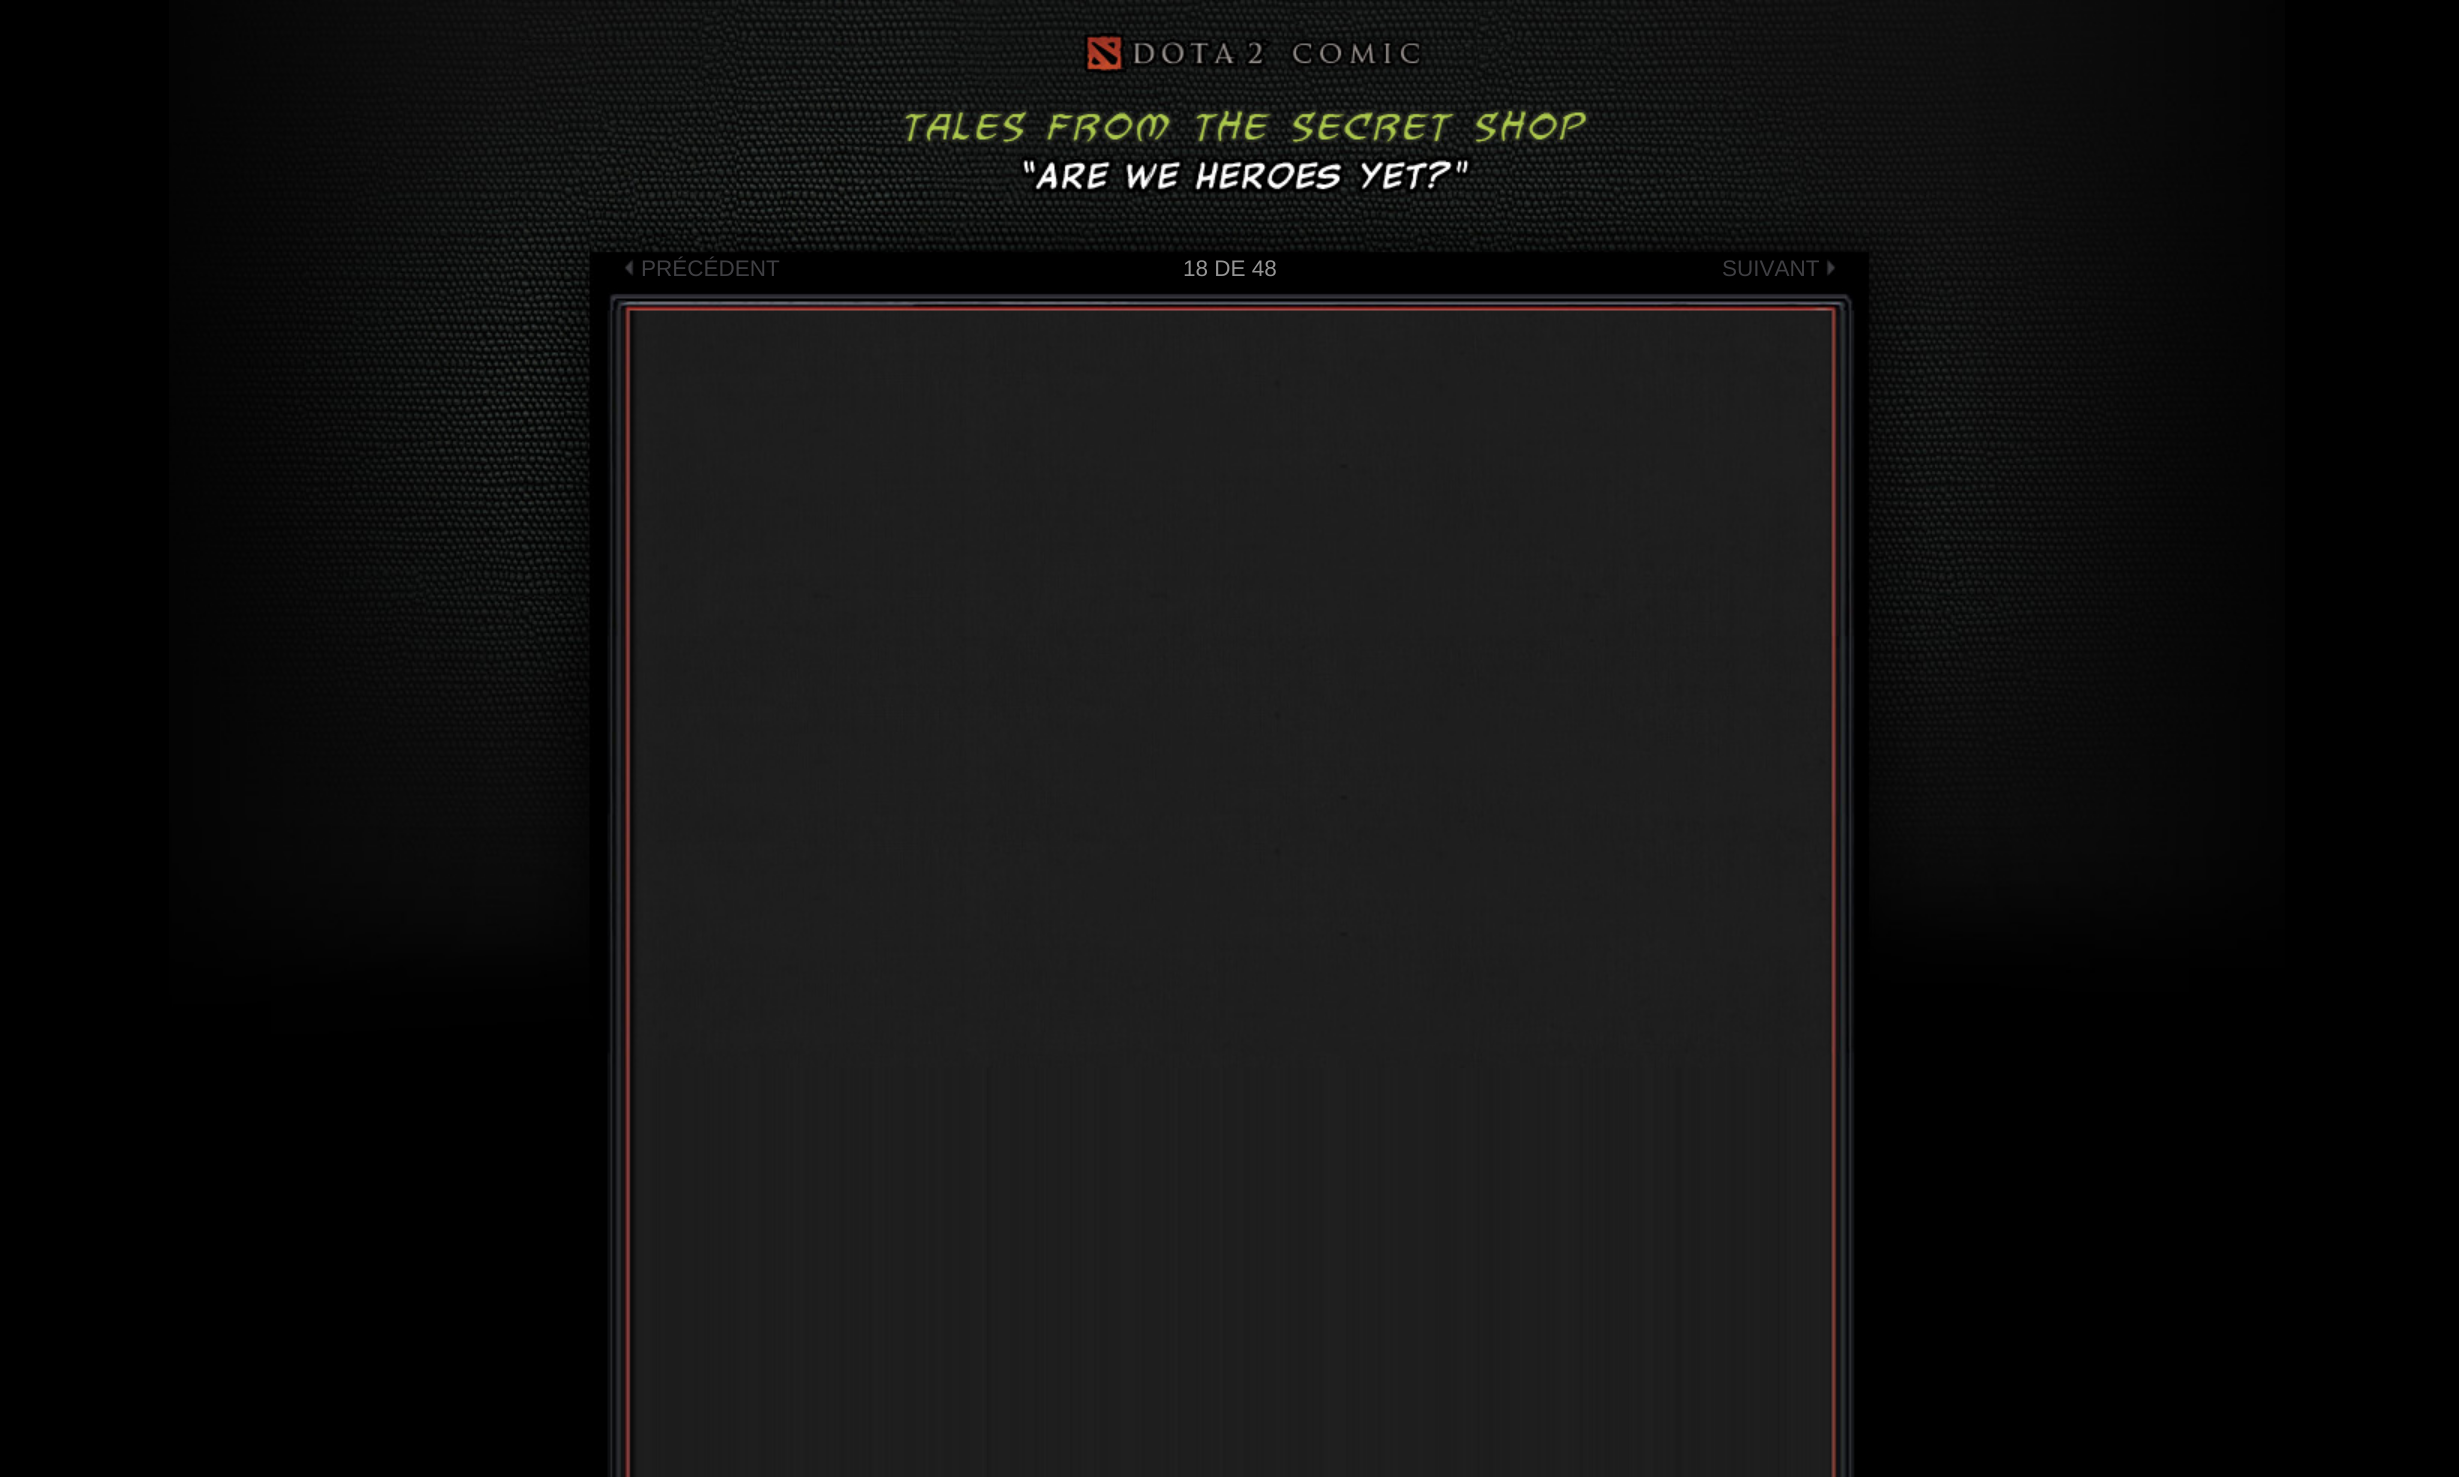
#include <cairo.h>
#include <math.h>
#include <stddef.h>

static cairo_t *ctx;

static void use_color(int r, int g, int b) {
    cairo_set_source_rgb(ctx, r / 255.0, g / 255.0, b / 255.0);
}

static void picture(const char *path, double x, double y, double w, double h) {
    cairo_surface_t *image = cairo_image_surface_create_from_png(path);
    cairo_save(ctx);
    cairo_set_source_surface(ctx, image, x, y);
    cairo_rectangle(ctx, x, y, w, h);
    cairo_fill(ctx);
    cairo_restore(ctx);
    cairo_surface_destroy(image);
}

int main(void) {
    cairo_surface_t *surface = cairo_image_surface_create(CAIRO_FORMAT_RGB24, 2459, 1477);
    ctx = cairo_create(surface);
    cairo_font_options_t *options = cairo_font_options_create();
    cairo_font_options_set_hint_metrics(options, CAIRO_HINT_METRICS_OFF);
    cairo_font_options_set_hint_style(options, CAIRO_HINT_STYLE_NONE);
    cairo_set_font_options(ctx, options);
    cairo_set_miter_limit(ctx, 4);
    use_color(0, 0, 0);
    cairo_paint(ctx);
    picture("img1.png", 607, 1068, 1248, 409);
    picture("img2.png", 169, 0, 2116, 1068);
    picture("img3.png", 624, 259, 10, 17);
    cairo_select_font_face(ctx, "Liberation Sans", CAIRO_FONT_SLANT_NORMAL, CAIRO_FONT_WEIGHT_NORMAL);
    cairo_set_font_size(ctx, 22.5);
    use_color(63, 63, 67);
    cairo_move_to(ctx, 641, 276);
    cairo_show_text(ctx, "PRÉCÉDENT");
    use_color(149, 149, 149);
    cairo_move_to(ctx, 1183, 276);
    cairo_show_text(ctx, "18 DE 48");
    use_color(63, 63, 67);
    cairo_move_to(ctx, 1722, 276);
    cairo_show_text(ctx, "SUIVANT");
    picture("img4.png", 1826, 259, 10, 17);
    cairo_surface_write_to_png(surface, "result.png");
    cairo_font_options_destroy(options);
    cairo_destroy(ctx);
    cairo_surface_destroy(surface);
    return 0;
}
